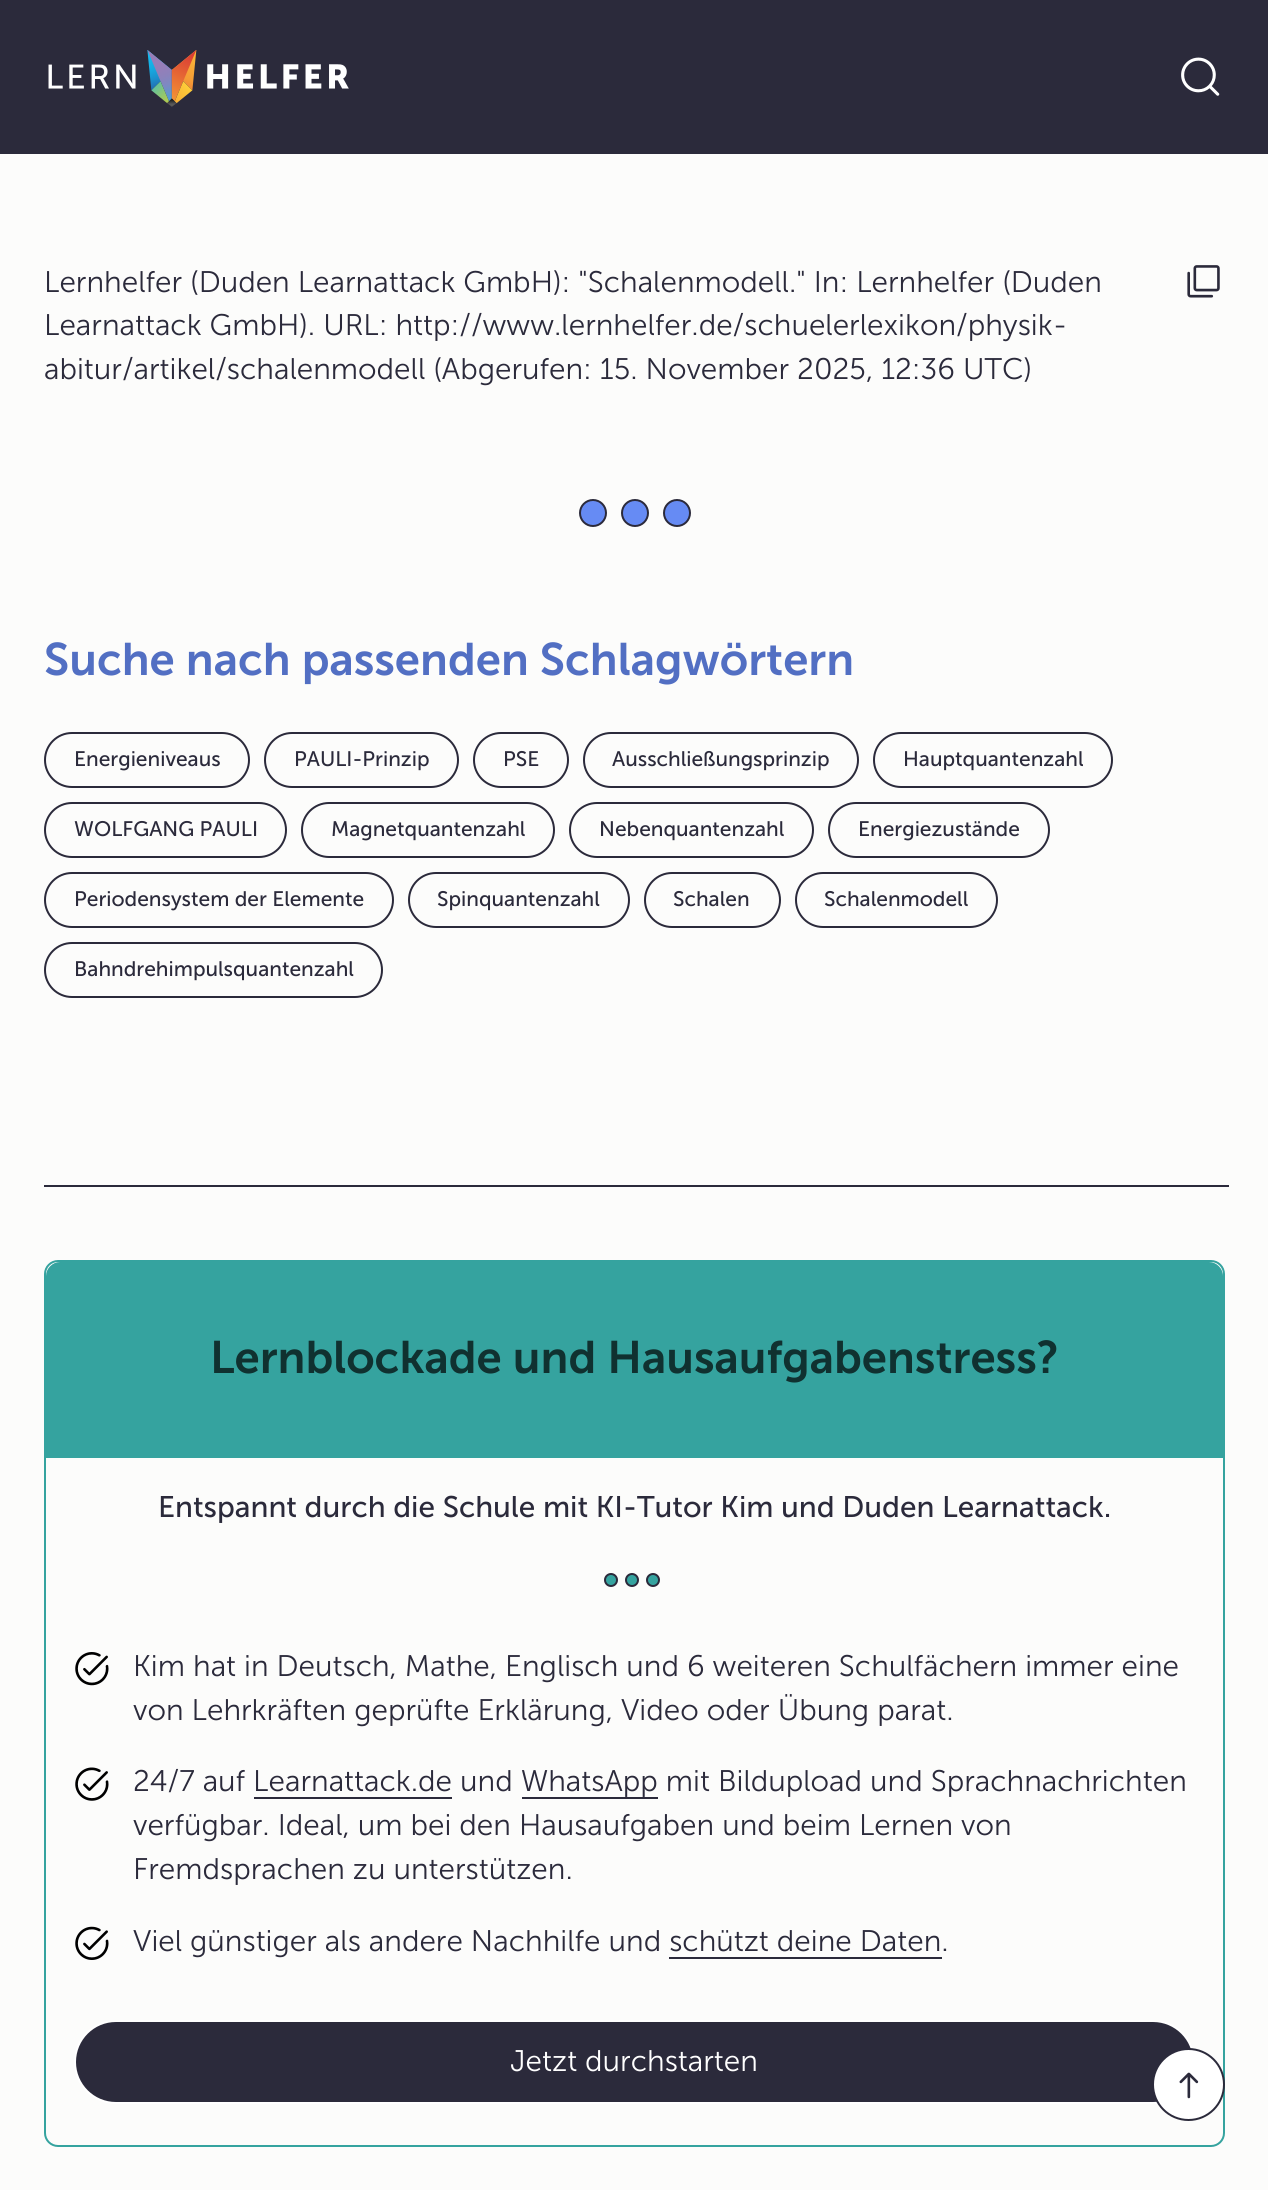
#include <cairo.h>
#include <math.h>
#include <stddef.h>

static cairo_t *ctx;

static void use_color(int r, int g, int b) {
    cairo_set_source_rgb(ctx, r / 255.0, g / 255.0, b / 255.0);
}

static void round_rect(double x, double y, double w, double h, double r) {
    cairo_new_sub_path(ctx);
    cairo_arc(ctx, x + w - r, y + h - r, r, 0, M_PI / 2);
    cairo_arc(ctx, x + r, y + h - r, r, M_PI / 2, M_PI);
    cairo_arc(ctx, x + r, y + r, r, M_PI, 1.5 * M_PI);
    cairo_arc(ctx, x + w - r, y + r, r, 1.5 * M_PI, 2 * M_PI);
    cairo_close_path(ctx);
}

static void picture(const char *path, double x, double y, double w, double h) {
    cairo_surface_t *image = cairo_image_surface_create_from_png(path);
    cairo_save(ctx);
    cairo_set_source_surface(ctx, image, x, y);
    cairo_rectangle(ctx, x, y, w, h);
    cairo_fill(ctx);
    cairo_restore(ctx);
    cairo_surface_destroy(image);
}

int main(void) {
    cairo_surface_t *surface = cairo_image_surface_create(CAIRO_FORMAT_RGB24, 1268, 2190);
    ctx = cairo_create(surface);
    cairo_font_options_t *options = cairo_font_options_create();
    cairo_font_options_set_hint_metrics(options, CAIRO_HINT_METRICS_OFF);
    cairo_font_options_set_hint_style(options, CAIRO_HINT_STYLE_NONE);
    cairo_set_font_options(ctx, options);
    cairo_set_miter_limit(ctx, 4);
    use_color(252, 252, 251);
    cairo_paint(ctx);
    use_color(43, 42, 59);
    cairo_rectangle(ctx, 0, 0, 1268, 154);
    cairo_fill(ctx);
    picture("img1.png", 48, 50, 301, 57);
    picture("img2.png", 1181, 57, 39, 39);
    cairo_select_font_face(ctx, "Museo Sans Light", CAIRO_FONT_SLANT_NORMAL, CAIRO_FONT_WEIGHT_NORMAL);
    cairo_set_font_size(ctx, 29.75);
    cairo_move_to(ctx, 44, 292);
    cairo_show_text(ctx, "Lernhelfer (Duden Learnattack GmbH): \"Schalenmodell.\" In: Lernhelfer (Duden");
    cairo_move_to(ctx, 44, 335);
    cairo_show_text(ctx, "Learnattack GmbH). URL: http://www.lernhelfer.de/schuelerlexikon/physik-");
    cairo_move_to(ctx, 44, 379);
    cairo_show_text(ctx, "abitur/artikel/schalenmodell (Abgerufen: 15. November 2025, 12:36 UTC)");
    picture("img3.png", 1187, 265, 33, 33);
    use_color(102, 139, 244);
    cairo_arc(ctx, 593, 513, 13, 0, 2 * M_PI);
    cairo_fill_preserve(ctx);
    use_color(43, 42, 59);
    cairo_stroke(ctx);
    use_color(102, 139, 244);
    cairo_arc(ctx, 635, 513, 13, 0, 2 * M_PI);
    cairo_fill_preserve(ctx);
    use_color(43, 42, 59);
    cairo_stroke(ctx);
    use_color(102, 139, 244);
    cairo_arc(ctx, 677, 513, 13, 0, 2 * M_PI);
    cairo_fill_preserve(ctx);
    use_color(43, 42, 59);
    cairo_stroke(ctx);
    cairo_select_font_face(ctx, "Museo Sans SemiBold", CAIRO_FONT_SLANT_NORMAL, CAIRO_FONT_WEIGHT_NORMAL);
    cairo_set_font_size(ctx, 45.5);
    use_color(82, 111, 195);
    cairo_move_to(ctx, 44, 675);
    cairo_show_text(ctx, "Suche nach passenden Schlagwörtern");
    round_rect(45, 733, 204, 54, 27);
    use_color(43, 42, 59);
    cairo_stroke(ctx);
    cairo_select_font_face(ctx, "Museo Sans", CAIRO_FONT_SLANT_NORMAL, CAIRO_FONT_WEIGHT_NORMAL);
    cairo_set_font_size(ctx, 21);
    cairo_move_to(ctx, 74, 766);
    cairo_show_text(ctx, "Energieniveaus");
    round_rect(265, 733, 193, 54, 27);
    cairo_stroke(ctx);
    cairo_move_to(ctx, 294, 766);
    cairo_show_text(ctx, "PAULI-Prinzip");
    round_rect(474, 733, 94, 54, 27);
    cairo_stroke(ctx);
    cairo_move_to(ctx, 503, 766);
    cairo_show_text(ctx, "PSE");
    round_rect(584, 733, 274, 54, 27);
    cairo_stroke(ctx);
    cairo_move_to(ctx, 612, 766);
    cairo_show_text(ctx, "Ausschließungsprinzip");
    round_rect(874, 733, 238, 54, 27);
    cairo_stroke(ctx);
    cairo_move_to(ctx, 903, 766);
    cairo_show_text(ctx, "Hauptquantenzahl");
    round_rect(45, 803, 241, 54, 27);
    cairo_stroke(ctx);
    cairo_move_to(ctx, 74, 836);
    cairo_show_text(ctx, "WOLFGANG PAULI");
    round_rect(302, 803, 252, 54, 27);
    cairo_stroke(ctx);
    cairo_move_to(ctx, 331, 836);
    cairo_show_text(ctx, "Magnetquantenzahl");
    round_rect(570, 803, 243, 54, 27);
    cairo_stroke(ctx);
    cairo_move_to(ctx, 599, 836);
    cairo_show_text(ctx, "Nebenquantenzahl");
    round_rect(829, 803, 220, 54, 27);
    cairo_stroke(ctx);
    cairo_move_to(ctx, 858, 836);
    cairo_show_text(ctx, "Energiezustände");
    round_rect(45, 873, 348, 54, 27);
    cairo_stroke(ctx);
    cairo_move_to(ctx, 74, 906);
    cairo_show_text(ctx, "Periodensystem der Elemente");
    round_rect(409, 873, 220, 54, 27);
    cairo_stroke(ctx);
    cairo_move_to(ctx, 437, 906);
    cairo_show_text(ctx, "Spinquantenzahl");
    round_rect(645, 873, 135, 54, 27);
    cairo_stroke(ctx);
    cairo_move_to(ctx, 673, 906);
    cairo_show_text(ctx, "Schalen");
    round_rect(796, 873, 201, 54, 27);
    cairo_stroke(ctx);
    cairo_move_to(ctx, 824, 906);
    cairo_show_text(ctx, "Schalenmodell");
    round_rect(45, 943, 337, 54, 27);
    cairo_stroke(ctx);
    cairo_move_to(ctx, 74, 976);
    cairo_show_text(ctx, "Bahndrehimpulsquantenzahl");
    cairo_rectangle(ctx, 44, 1185, 1185, 2);
    cairo_fill(ctx);
    round_rect(45, 1261, 1179, 885, 13);
    use_color(53, 163, 159);
    cairo_stroke(ctx);
    cairo_new_path(ctx);
    cairo_move_to(ctx, 60, 1262);
    cairo_line_to(ctx, 1209, 1262);
    cairo_curve_to(ctx, 1216.5, 1262, 1223, 1268.5, 1223, 1276);
    cairo_line_to(ctx, 1223, 1458);
    cairo_line_to(ctx, 46, 1458);
    cairo_line_to(ctx, 46, 1276);
    cairo_curve_to(ctx, 46, 1268.5, 52.5, 1262, 60, 1262);
    cairo_close_path(ctx);
    cairo_fill(ctx);
    cairo_select_font_face(ctx, "Museo Sans SemiBold", CAIRO_FONT_SLANT_NORMAL, CAIRO_FONT_WEIGHT_NORMAL);
    cairo_set_font_size(ctx, 45.5);
    use_color(16, 49, 48);
    cairo_move_to(ctx, 210, 1373);
    cairo_show_text(ctx, "Lernblockade und Hausaufgabenstress?");
    cairo_select_font_face(ctx, "Museo Sans", CAIRO_FONT_SLANT_NORMAL, CAIRO_FONT_WEIGHT_NORMAL);
    cairo_set_font_size(ctx, 29.75);
    use_color(43, 42, 59);
    cairo_move_to(ctx, 158, 1517);
    cairo_show_text(ctx, "Entspannt durch die Schule mit KI-Tutor Kim und Duden Learnattack.");
    use_color(53, 163, 159);
    cairo_new_path(ctx);
    cairo_arc(ctx, 611, 1580, 6, 0, 2 * M_PI);
    cairo_fill_preserve(ctx);
    use_color(43, 42, 59);
    cairo_stroke(ctx);
    use_color(53, 163, 159);
    cairo_arc(ctx, 632, 1580, 6, 0, 2 * M_PI);
    cairo_fill_preserve(ctx);
    use_color(43, 42, 59);
    cairo_stroke(ctx);
    use_color(53, 163, 159);
    cairo_arc(ctx, 653, 1580, 6, 0, 2 * M_PI);
    cairo_fill_preserve(ctx);
    use_color(43, 42, 59);
    cairo_stroke(ctx);
    picture("img4.png", 75, 1652, 34, 34);
    cairo_select_font_face(ctx, "Museo Sans Light", CAIRO_FONT_SLANT_NORMAL, CAIRO_FONT_WEIGHT_NORMAL);
    cairo_move_to(ctx, 133, 1676);
    cairo_show_text(ctx, "Kim hat in Deutsch, Mathe, Englisch und 6 weiteren Schulfächern immer eine");
    cairo_move_to(ctx, 133, 1720);
    cairo_show_text(ctx, "von Lehrkräften geprüfte Erklärung, Video oder Übung parat.");
    picture("img5.png", 75, 1767, 34, 34);
    cairo_move_to(ctx, 133, 1791);
    cairo_show_text(ctx, "24/7 auf Learnattack.de und WhatsApp mit Bildupload und Sprachnachrichten");
    cairo_rectangle(ctx, 254, 1797, 198, 2);
    cairo_fill(ctx);
    cairo_rectangle(ctx, 522, 1797, 136, 2);
    cairo_fill(ctx);
    cairo_move_to(ctx, 133, 1835);
    cairo_show_text(ctx, "verfügbar. Ideal, um bei den Hausaufgaben und beim Lernen von");
    cairo_move_to(ctx, 133, 1879);
    cairo_show_text(ctx, "Fremdsprachen zu unterstützen.");
    picture("img6.png", 75, 1926, 34, 34);
    cairo_move_to(ctx, 133, 1951);
    cairo_show_text(ctx, "Viel günstiger als andere Nachhilfe und schützt deine Daten.");
    cairo_rectangle(ctx, 669, 1957, 273, 2);
    cairo_fill(ctx);
    round_rect(75, 2021, 1119, 82, 41);
    cairo_fill_preserve(ctx);
    use_color(255, 255, 255);
    cairo_stroke(ctx);
    cairo_move_to(ctx, 510, 2071);
    cairo_show_text(ctx, "Jetzt durchstarten");
    cairo_new_path(ctx);
    cairo_arc(ctx, 1188.5, 2084.5, 35.5, 0, 2 * M_PI);
    cairo_fill_preserve(ctx);
    use_color(43, 42, 59);
    cairo_stroke(ctx);
    picture("img7.png", 1179, 2072, 20, 27);
    cairo_surface_write_to_png(surface, "result.png");
    cairo_font_options_destroy(options);
    cairo_destroy(ctx);
    cairo_surface_destroy(surface);
    return 0;
}
